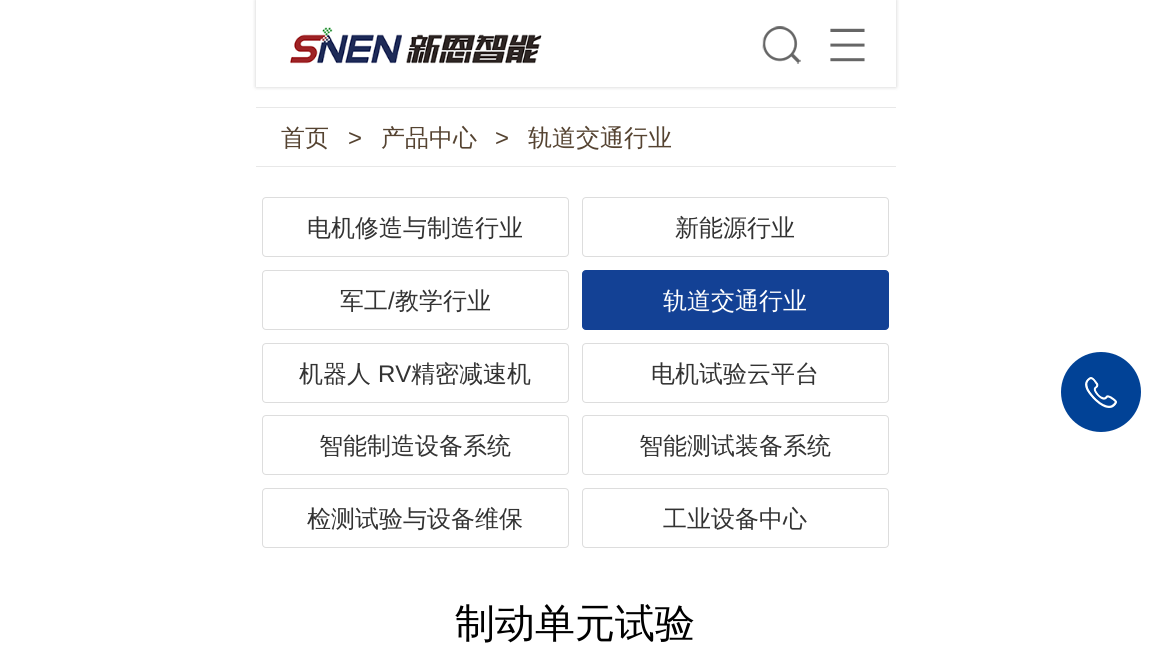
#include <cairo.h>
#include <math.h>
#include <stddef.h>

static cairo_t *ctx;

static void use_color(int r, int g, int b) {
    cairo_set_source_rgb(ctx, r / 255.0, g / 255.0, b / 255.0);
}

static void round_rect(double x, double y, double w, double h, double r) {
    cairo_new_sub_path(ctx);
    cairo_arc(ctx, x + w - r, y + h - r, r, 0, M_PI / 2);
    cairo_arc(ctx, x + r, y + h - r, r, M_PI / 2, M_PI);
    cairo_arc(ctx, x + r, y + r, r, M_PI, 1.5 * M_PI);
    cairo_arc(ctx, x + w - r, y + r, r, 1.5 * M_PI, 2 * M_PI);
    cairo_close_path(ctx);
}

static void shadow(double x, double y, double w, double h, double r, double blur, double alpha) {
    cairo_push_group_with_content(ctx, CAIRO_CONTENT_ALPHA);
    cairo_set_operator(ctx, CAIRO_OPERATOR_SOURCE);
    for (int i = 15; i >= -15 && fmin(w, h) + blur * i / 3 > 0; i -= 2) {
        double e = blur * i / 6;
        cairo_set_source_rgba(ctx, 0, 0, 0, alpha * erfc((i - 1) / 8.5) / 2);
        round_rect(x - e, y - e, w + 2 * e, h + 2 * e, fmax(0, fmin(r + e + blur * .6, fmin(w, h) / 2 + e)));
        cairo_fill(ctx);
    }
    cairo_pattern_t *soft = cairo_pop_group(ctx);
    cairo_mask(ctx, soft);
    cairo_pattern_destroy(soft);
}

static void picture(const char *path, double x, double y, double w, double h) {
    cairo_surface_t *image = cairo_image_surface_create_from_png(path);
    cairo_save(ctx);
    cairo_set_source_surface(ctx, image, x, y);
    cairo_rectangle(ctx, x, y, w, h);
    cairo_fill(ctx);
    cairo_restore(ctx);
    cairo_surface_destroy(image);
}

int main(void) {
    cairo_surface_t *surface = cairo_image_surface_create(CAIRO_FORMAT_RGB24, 1151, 672);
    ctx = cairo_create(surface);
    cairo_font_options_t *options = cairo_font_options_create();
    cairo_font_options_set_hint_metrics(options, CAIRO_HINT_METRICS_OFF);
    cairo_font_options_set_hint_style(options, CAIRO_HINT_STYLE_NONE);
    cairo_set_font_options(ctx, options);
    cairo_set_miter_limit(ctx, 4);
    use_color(255, 255, 255);
    cairo_paint(ctx);
    cairo_save(ctx);
    cairo_set_fill_rule(ctx, CAIRO_FILL_RULE_EVEN_ODD);
    cairo_new_path(ctx);
    cairo_move_to(ctx, 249, 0);
    cairo_line_to(ctx, 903, 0);
    cairo_line_to(ctx, 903, 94);
    cairo_line_to(ctx, 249, 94);
    cairo_close_path(ctx);
    cairo_move_to(ctx, 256, 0);
    cairo_line_to(ctx, 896, 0);
    cairo_line_to(ctx, 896, 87);
    cairo_line_to(ctx, 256, 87);
    cairo_close_path(ctx);
    cairo_clip(ctx);
    use_color(0, 0, 0);
    shadow(256, 0, 640, 87, 0, 2, 0.2);
    cairo_restore(ctx);
    picture("img1.png", 290, 27, 252, 37);
    picture("img2.png", 762, 26, 39, 38);
    picture("img3.png", 830, 28, 35, 34);
    use_color(232, 232, 232);
    cairo_rectangle(ctx, 256, 107, 640, 1);
    cairo_fill(ctx);
    cairo_rectangle(ctx, 256, 166, 640, 1);
    cairo_fill(ctx);
    cairo_select_font_face(ctx, "WenQuanYi Zen Hei Medium", CAIRO_FONT_SLANT_NORMAL, CAIRO_FONT_WEIGHT_NORMAL);
    cairo_set_font_size(ctx, 24);
    use_color(85, 67, 49);
    cairo_move_to(ctx, 281, 146);
    cairo_show_text(ctx, "首页");
    cairo_select_font_face(ctx, "Liberation Sans", CAIRO_FONT_SLANT_NORMAL, CAIRO_FONT_WEIGHT_NORMAL);
    cairo_move_to(ctx, 348, 146);
    cairo_show_text(ctx, ">");
    cairo_select_font_face(ctx, "WenQuanYi Zen Hei Medium", CAIRO_FONT_SLANT_NORMAL, CAIRO_FONT_WEIGHT_NORMAL);
    cairo_move_to(ctx, 381, 146);
    cairo_show_text(ctx, "产品中心");
    cairo_select_font_face(ctx, "Liberation Sans", CAIRO_FONT_SLANT_NORMAL, CAIRO_FONT_WEIGHT_NORMAL);
    cairo_move_to(ctx, 495, 146);
    cairo_show_text(ctx, ">");
    cairo_select_font_face(ctx, "WenQuanYi Zen Hei Medium", CAIRO_FONT_SLANT_NORMAL, CAIRO_FONT_WEIGHT_NORMAL);
    cairo_move_to(ctx, 528, 146);
    cairo_show_text(ctx, "轨道交通行业");
    round_rect(262.5, 197.5, 306, 59, 3.5);
    use_color(221, 221, 221);
    cairo_set_line_width(ctx, 1);
    cairo_stroke(ctx);
    use_color(51, 51, 51);
    cairo_move_to(ctx, 307, 236);
    cairo_show_text(ctx, "电机修造与制造行业");
    round_rect(582.5, 197.5, 306, 59, 3.5);
    use_color(221, 221, 221);
    cairo_stroke(ctx);
    use_color(51, 51, 51);
    cairo_move_to(ctx, 675, 236);
    cairo_show_text(ctx, "新能源行业");
    round_rect(262.5, 270.5, 306, 59, 3.5);
    use_color(221, 221, 221);
    cairo_stroke(ctx);
    use_color(51, 51, 51);
    cairo_move_to(ctx, 340, 309);
    cairo_show_text(ctx, "军工");
    cairo_select_font_face(ctx, "Liberation Sans", CAIRO_FONT_SLANT_NORMAL, CAIRO_FONT_WEIGHT_NORMAL);
    cairo_move_to(ctx, 388, 309);
    cairo_show_text(ctx, "/");
    cairo_select_font_face(ctx, "WenQuanYi Zen Hei Medium", CAIRO_FONT_SLANT_NORMAL, CAIRO_FONT_WEIGHT_NORMAL);
    cairo_move_to(ctx, 395, 309);
    cairo_show_text(ctx, "教学行业");
    use_color(19, 65, 149);
    round_rect(582.5, 270.5, 306, 59, 3.5);
    cairo_fill_preserve(ctx);
    cairo_stroke(ctx);
    use_color(255, 255, 255);
    cairo_move_to(ctx, 663, 309);
    cairo_show_text(ctx, "轨道交通行业");
    round_rect(262.5, 343.5, 306, 59, 3.5);
    use_color(221, 221, 221);
    cairo_stroke(ctx);
    use_color(51, 51, 51);
    cairo_move_to(ctx, 299, 382);
    cairo_show_text(ctx, "机器人");
    cairo_select_font_face(ctx, "Liberation Sans", CAIRO_FONT_SLANT_NORMAL, CAIRO_FONT_WEIGHT_NORMAL);
    cairo_move_to(ctx, 378, 382);
    cairo_show_text(ctx, "RV");
    cairo_select_font_face(ctx, "WenQuanYi Zen Hei Medium", CAIRO_FONT_SLANT_NORMAL, CAIRO_FONT_WEIGHT_NORMAL);
    cairo_move_to(ctx, 411, 382);
    cairo_show_text(ctx, "精密减速机");
    round_rect(582.5, 343.5, 306, 59, 3.5);
    use_color(221, 221, 221);
    cairo_stroke(ctx);
    use_color(51, 51, 51);
    cairo_move_to(ctx, 651, 382);
    cairo_show_text(ctx, "电机试验云平台");
    round_rect(262.5, 415.5, 306, 59, 3.5);
    use_color(221, 221, 221);
    cairo_stroke(ctx);
    use_color(51, 51, 51);
    cairo_move_to(ctx, 319, 454);
    cairo_show_text(ctx, "智能制造设备系统");
    round_rect(582.5, 415.5, 306, 59, 3.5);
    use_color(221, 221, 221);
    cairo_stroke(ctx);
    use_color(51, 51, 51);
    cairo_move_to(ctx, 639, 454);
    cairo_show_text(ctx, "智能测试装备系统");
    round_rect(262.5, 488.5, 306, 59, 3.5);
    use_color(221, 221, 221);
    cairo_stroke(ctx);
    use_color(51, 51, 51);
    cairo_move_to(ctx, 307, 527);
    cairo_show_text(ctx, "检测试验与设备维保");
    round_rect(582.5, 488.5, 306, 59, 3.5);
    use_color(221, 221, 221);
    cairo_stroke(ctx);
    use_color(51, 51, 51);
    cairo_move_to(ctx, 663, 527);
    cairo_show_text(ctx, "工业设备中心");
    use_color(1, 66, 150);
    cairo_new_path(ctx);
    cairo_arc(ctx, 1101, 392, 40, 0, 2 * M_PI);
    cairo_fill(ctx);
    picture("img4.png", 1085, 377, 32, 31);
    cairo_set_font_size(ctx, 40);
    use_color(0, 0, 0);
    cairo_move_to(ctx, 455, 637);
    cairo_show_text(ctx, "制动单元试验");
    cairo_surface_write_to_png(surface, "result.png");
    cairo_font_options_destroy(options);
    cairo_destroy(ctx);
    cairo_surface_destroy(surface);
    return 0;
}
